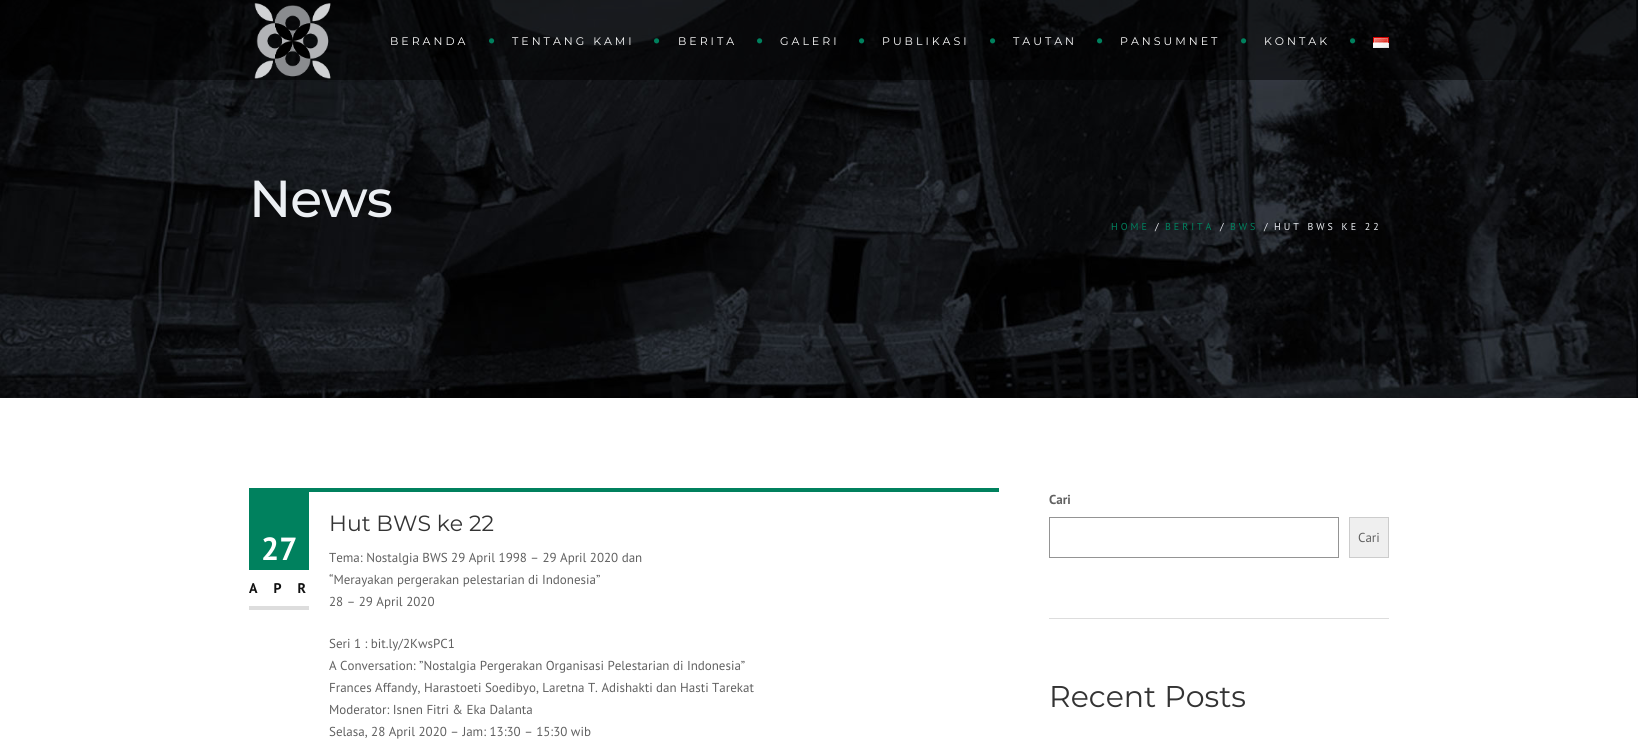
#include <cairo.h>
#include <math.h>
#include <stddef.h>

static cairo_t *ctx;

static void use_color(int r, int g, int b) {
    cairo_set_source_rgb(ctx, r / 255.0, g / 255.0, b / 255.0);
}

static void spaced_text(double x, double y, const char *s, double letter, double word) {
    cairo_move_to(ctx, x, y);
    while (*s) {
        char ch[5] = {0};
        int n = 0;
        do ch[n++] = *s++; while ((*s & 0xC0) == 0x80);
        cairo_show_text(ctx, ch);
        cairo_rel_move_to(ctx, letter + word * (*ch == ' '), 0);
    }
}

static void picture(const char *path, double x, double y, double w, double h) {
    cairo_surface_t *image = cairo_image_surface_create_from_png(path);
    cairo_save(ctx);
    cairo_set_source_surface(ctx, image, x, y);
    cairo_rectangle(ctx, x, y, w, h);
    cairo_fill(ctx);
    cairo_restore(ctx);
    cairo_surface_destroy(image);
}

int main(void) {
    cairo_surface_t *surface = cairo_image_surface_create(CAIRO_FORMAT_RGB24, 1638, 748);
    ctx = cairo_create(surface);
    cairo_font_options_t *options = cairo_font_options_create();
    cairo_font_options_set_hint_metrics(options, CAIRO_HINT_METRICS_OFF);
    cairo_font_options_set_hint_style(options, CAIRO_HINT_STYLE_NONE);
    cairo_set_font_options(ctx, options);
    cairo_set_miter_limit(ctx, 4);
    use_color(255, 255, 255);
    cairo_paint(ctx);
    picture("img11.png", 0, 0, 1638, 398);
    cairo_set_source_rgba(ctx, 0, 0, 0, 0.5);
    cairo_rectangle(ctx, 0, 0, 1638, 80);
    cairo_fill(ctx);
    picture("img1.png", 254, 3, 77, 76);
    cairo_select_font_face(ctx, "Montserrat", CAIRO_FONT_SLANT_NORMAL, CAIRO_FONT_WEIGHT_NORMAL);
    cairo_set_font_size(ctx, 11);
    use_color(255, 255, 255);
    spaced_text(390, 45, "BERANDA", 3, 0);
    picture("img2.png", 489, 38, 6, 6);
    spaced_text(512, 45, "TENTANG KAMI", 3, 0);
    picture("img3.png", 654, 38, 6, 6);
    spaced_text(678, 45, "BERITA", 3, 0);
    picture("img4.png", 757, 38, 6, 6);
    spaced_text(780, 45, "GALERI", 3, 0);
    picture("img5.png", 859, 38, 6, 6);
    spaced_text(882, 45, "PUBLIKASI", 3, 0);
    picture("img6.png", 990, 38, 6, 6);
    spaced_text(1013, 45, "TAUTAN", 3, 0);
    picture("img7.png", 1097, 38, 6, 6);
    spaced_text(1120, 45, "PANSUMNET", 3, 0);
    picture("img8.png", 1241, 38, 6, 6);
    spaced_text(1264, 45, "KONTAK", 3, 0);
    picture("img9.png", 1350, 38, 6, 6);
    picture("img10.png", 1373, 37, 16, 11);
    cairo_select_font_face(ctx, "Montserrat Medium", CAIRO_FONT_SLANT_NORMAL, CAIRO_FONT_WEIGHT_NORMAL);
    cairo_set_font_size(ctx, 52);
    use_color(236, 239, 243);
    spaced_text(249, 217, "News", -1, 0);
    cairo_select_font_face(ctx, "PT Sans", CAIRO_FONT_SLANT_NORMAL, CAIRO_FONT_WEIGHT_NORMAL);
    cairo_set_font_size(ctx, 10);
    use_color(0, 129, 94);
    spaced_text(1111, 230, "HOME", 3, 0);
    use_color(236, 239, 243);
    spaced_text(1155, 230, "/", 3, 0);
    use_color(0, 129, 94);
    spaced_text(1165, 230, "BERITA", 3, 0);
    use_color(236, 239, 243);
    spaced_text(1220, 230, "/", 3, 0);
    use_color(0, 129, 94);
    spaced_text(1230, 230, "BWS", 3, 0);
    use_color(236, 239, 243);
    spaced_text(1264, 230, "/", 3, 0);
    spaced_text(1274, 230, "HUT BWS KE 22", 3, 0);
    use_color(0, 129, 94);
    cairo_rectangle(ctx, 249, 488, 750, 4);
    cairo_fill(ctx);
    cairo_rectangle(ctx, 249, 492, 60, 78);
    cairo_fill(ctx);
    cairo_select_font_face(ctx, "PT Sans", CAIRO_FONT_SLANT_NORMAL, CAIRO_FONT_WEIGHT_BOLD);
    cairo_set_font_size(ctx, 32);
    use_color(255, 255, 255);
    cairo_move_to(ctx, 261, 560);
    cairo_show_text(ctx, "27");
    use_color(221, 221, 221);
    cairo_rectangle(ctx, 249, 606, 60, 4);
    cairo_fill(ctx);
    cairo_set_font_size(ctx, 14);
    use_color(17, 17, 17);
    spaced_text(249, 593, "APR", 16, 0);
    cairo_select_font_face(ctx, "Montserrat", CAIRO_FONT_SLANT_NORMAL, CAIRO_FONT_WEIGHT_NORMAL);
    cairo_set_font_size(ctx, 22);
    use_color(51, 51, 51);
    cairo_move_to(ctx, 329, 531);
    cairo_show_text(ctx, "Hut BWS ke 22");
    cairo_select_font_face(ctx, "PT Sans", CAIRO_FONT_SLANT_NORMAL, CAIRO_FONT_WEIGHT_NORMAL);
    cairo_set_font_size(ctx, 13);
    use_color(96, 96, 96);
    cairo_move_to(ctx, 329, 562);
    cairo_show_text(ctx, "Tema: Nostalgia BWS 29 April 1998 – 29 April 2020 dan");
    cairo_move_to(ctx, 329, 584);
    cairo_show_text(ctx, "“Merayakan pergerakan pelestarian di Indonesia”");
    cairo_move_to(ctx, 329, 606);
    cairo_show_text(ctx, "28 – 29 April 2020");
    cairo_move_to(ctx, 329, 648);
    cairo_show_text(ctx, "Seri 1 : bit.ly/2KwsPC1");
    cairo_move_to(ctx, 329, 670);
    cairo_show_text(ctx, "A Conversation: ”Nostalgia Pergerakan Organisasi Pelestarian di Indonesia”");
    cairo_move_to(ctx, 329, 692);
    cairo_show_text(ctx, "Frances Affandy, Harastoeti Soedibyo, Laretna T. Adishakti dan Hasti Tarekat");
    cairo_move_to(ctx, 329, 714);
    cairo_show_text(ctx, "Moderator: Isnen Fitri & Eka Dalanta");
    cairo_move_to(ctx, 329, 736);
    cairo_show_text(ctx, "Selasa, 28 April 2020 – Jam: 13:30 – 15:30 wib");
    use_color(221, 221, 221);
    cairo_rectangle(ctx, 1049, 618, 340, 1);
    cairo_fill(ctx);
    cairo_select_font_face(ctx, "PT Sans", CAIRO_FONT_SLANT_NORMAL, CAIRO_FONT_WEIGHT_BOLD);
    use_color(96, 96, 96);
    cairo_move_to(ctx, 1049, 504);
    cairo_show_text(ctx, "Cari");
    cairo_rectangle(ctx, 1049.5, 517.5, 289, 40);
    use_color(148, 148, 148);
    cairo_set_line_width(ctx, 1);
    cairo_stroke(ctx);
    use_color(239, 239, 239);
    cairo_rectangle(ctx, 1349.5, 517.5, 39, 40);
    cairo_fill_preserve(ctx);
    use_color(204, 204, 204);
    cairo_stroke(ctx);
    cairo_select_font_face(ctx, "PT Sans", CAIRO_FONT_SLANT_NORMAL, CAIRO_FONT_WEIGHT_NORMAL);
    use_color(96, 96, 96);
    cairo_move_to(ctx, 1358, 542);
    cairo_show_text(ctx, "Cari");
    cairo_select_font_face(ctx, "Montserrat", CAIRO_FONT_SLANT_NORMAL, CAIRO_FONT_WEIGHT_NORMAL);
    cairo_set_font_size(ctx, 30);
    use_color(51, 51, 51);
    cairo_move_to(ctx, 1049, 707);
    cairo_show_text(ctx, "Recent Posts");
    cairo_surface_write_to_png(surface, "result.png");
    cairo_font_options_destroy(options);
    cairo_destroy(ctx);
    cairo_surface_destroy(surface);
    return 0;
}
